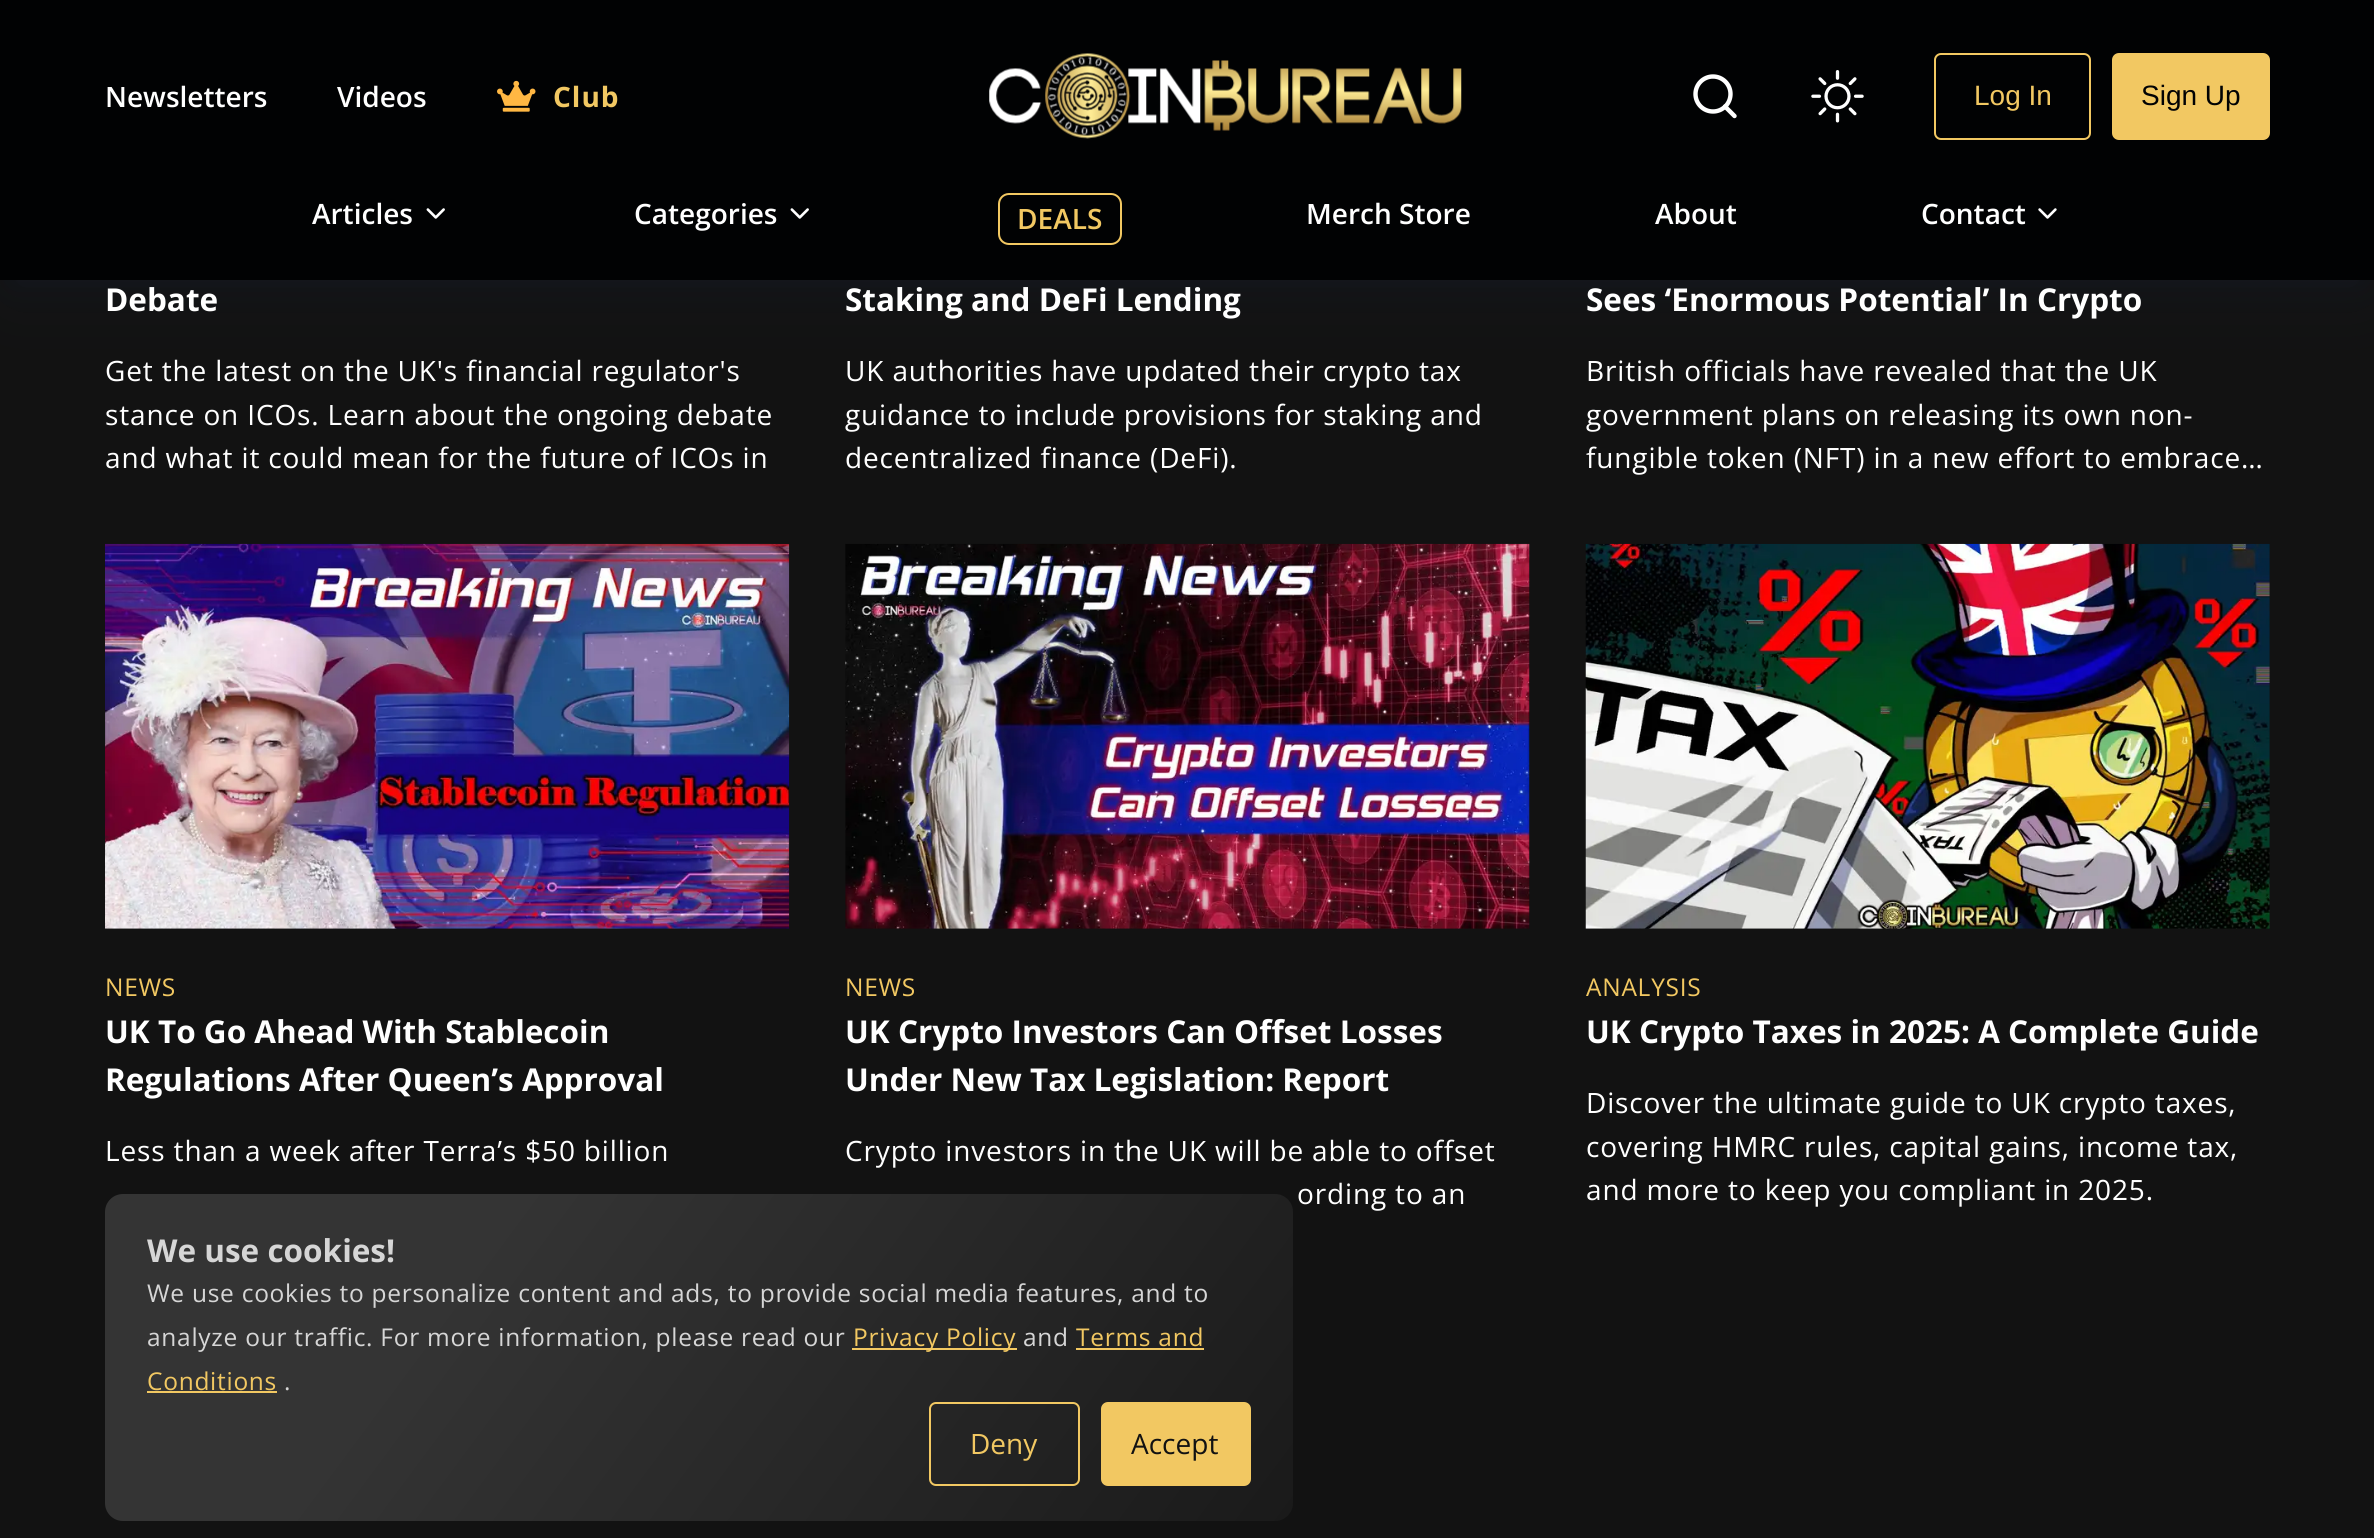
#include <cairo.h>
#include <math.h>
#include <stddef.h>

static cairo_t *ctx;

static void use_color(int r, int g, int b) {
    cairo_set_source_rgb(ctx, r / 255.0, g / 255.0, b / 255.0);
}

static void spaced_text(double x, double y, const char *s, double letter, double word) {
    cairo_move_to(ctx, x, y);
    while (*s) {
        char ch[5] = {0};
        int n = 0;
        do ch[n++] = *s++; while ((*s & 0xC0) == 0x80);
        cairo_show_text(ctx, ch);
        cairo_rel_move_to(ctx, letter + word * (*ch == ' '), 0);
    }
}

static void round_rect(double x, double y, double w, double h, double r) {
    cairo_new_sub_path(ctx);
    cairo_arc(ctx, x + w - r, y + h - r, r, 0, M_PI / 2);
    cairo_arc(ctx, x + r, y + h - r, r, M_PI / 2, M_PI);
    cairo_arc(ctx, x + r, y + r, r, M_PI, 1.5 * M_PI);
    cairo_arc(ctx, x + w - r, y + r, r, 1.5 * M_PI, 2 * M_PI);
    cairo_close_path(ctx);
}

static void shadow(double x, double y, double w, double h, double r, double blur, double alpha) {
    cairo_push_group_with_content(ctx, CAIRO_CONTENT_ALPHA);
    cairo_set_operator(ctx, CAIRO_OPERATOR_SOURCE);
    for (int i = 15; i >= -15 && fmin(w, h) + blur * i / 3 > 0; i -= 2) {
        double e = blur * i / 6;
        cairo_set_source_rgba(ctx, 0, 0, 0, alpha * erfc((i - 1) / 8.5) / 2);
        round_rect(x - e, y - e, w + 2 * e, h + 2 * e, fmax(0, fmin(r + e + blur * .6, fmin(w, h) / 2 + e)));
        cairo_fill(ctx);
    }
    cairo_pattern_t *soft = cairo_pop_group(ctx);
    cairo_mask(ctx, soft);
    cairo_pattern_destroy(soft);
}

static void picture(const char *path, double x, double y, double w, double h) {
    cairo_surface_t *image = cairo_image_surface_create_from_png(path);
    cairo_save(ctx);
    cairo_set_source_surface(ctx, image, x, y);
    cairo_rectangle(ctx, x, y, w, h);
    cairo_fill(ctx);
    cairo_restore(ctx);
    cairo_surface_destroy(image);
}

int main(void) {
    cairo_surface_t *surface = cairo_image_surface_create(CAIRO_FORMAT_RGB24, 2374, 1538);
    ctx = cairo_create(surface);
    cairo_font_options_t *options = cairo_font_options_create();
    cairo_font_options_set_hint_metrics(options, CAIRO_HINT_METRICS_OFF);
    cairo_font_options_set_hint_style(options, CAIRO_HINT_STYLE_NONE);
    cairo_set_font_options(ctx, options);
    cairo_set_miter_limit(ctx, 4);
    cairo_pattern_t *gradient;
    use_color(18, 18, 18);
    cairo_paint(ctx);
    use_color(24, 39, 75);
    shadow(7, 28, 2361, 266, 0, 37, 0.12);
    shadow(11, 25, 2353, 259, 0, 16, 0.12);
    use_color(1, 2, 3);
    cairo_rectangle(ctx, 0, 0, 2374, 280);
    cairo_fill(ctx);
    cairo_select_font_face(ctx, "Open Sans SemiBold", CAIRO_FONT_SLANT_NORMAL, CAIRO_FONT_WEIGHT_NORMAL);
    cairo_set_font_size(ctx, 28);
    use_color(255, 255, 255);
    cairo_move_to(ctx, 105, 107);
    cairo_show_text(ctx, "Newsletters");
    cairo_move_to(ctx, 337, 107);
    cairo_show_text(ctx, "Videos");
    picture("img1.png", 497, 80, 39, 32);
    cairo_select_font_face(ctx, "Open Sans", CAIRO_FONT_SLANT_NORMAL, CAIRO_FONT_WEIGHT_BOLD);
    use_color(242, 200, 98);
    spaced_text(553, 107, "Club", 1, 0);
    picture("img2.png", 989, 53, 473, 86);
    cairo_arc(ctx, 1713, 94, 17.5, 0, 2 * M_PI);
    use_color(255, 255, 255);
    cairo_set_line_width(ctx, 4.4);
    cairo_stroke(ctx);
    cairo_new_path(ctx);
    cairo_move_to(ctx, 1734.5, 116);
    cairo_line_to(ctx, 1725, 106.5);
    cairo_set_line_cap(ctx, CAIRO_LINE_CAP_ROUND);
    cairo_set_line_join(ctx, CAIRO_LINE_JOIN_ROUND);
    cairo_stroke(ctx);
    picture("img3.png", 1811, 70, 53, 53);
    round_rect(1935, 54, 155, 85, 6);
    use_color(242, 200, 98);
    cairo_set_line_width(ctx, 2);
    cairo_set_line_cap(ctx, CAIRO_LINE_CAP_BUTT);
    cairo_set_line_join(ctx, CAIRO_LINE_JOIN_MITER);
    cairo_stroke(ctx);
    cairo_select_font_face(ctx, "Liberation Sans", CAIRO_FONT_SLANT_NORMAL, CAIRO_FONT_WEIGHT_NORMAL);
    cairo_move_to(ctx, 1974, 105);
    cairo_show_text(ctx, "Log In");
    round_rect(2112, 53, 158, 87, 7);
    cairo_fill(ctx);
    use_color(1, 2, 3);
    cairo_move_to(ctx, 2141, 105);
    cairo_show_text(ctx, "Sign Up");
    cairo_select_font_face(ctx, "Open Sans SemiBold", CAIRO_FONT_SLANT_NORMAL, CAIRO_FONT_WEIGHT_NORMAL);
    use_color(255, 255, 255);
    cairo_move_to(ctx, 312, 224);
    cairo_show_text(ctx, "Articles");
    picture("img4.png", 426, 208, 19, 11);
    cairo_move_to(ctx, 634, 224);
    cairo_show_text(ctx, "Categories");
    picture("img4.png", 790, 208, 19, 11);
    round_rect(999, 194, 122, 50, 10);
    use_color(242, 200, 98);
    cairo_stroke(ctx);
    cairo_move_to(ctx, 1017, 229);
    cairo_show_text(ctx, "DEALS");
    use_color(255, 255, 255);
    cairo_move_to(ctx, 1306, 224);
    cairo_show_text(ctx, "Merch Store");
    cairo_move_to(ctx, 1655, 224);
    cairo_show_text(ctx, "About");
    cairo_move_to(ctx, 1921, 224);
    cairo_show_text(ctx, "Contact");
    picture("img5.png", 2038, 208, 19, 11);
    cairo_select_font_face(ctx, "Open Sans", CAIRO_FONT_SLANT_NORMAL, CAIRO_FONT_WEIGHT_BOLD);
    cairo_set_font_size(ctx, 31.5);
    cairo_move_to(ctx, 105, 311);
    cairo_show_text(ctx, "Debate");
    cairo_select_font_face(ctx, "Open Sans", CAIRO_FONT_SLANT_NORMAL, CAIRO_FONT_WEIGHT_NORMAL);
    cairo_set_font_size(ctx, 28);
    spaced_text(105, 381, "Get the latest on the UK's financial regulator's", 0.85, 0);
    spaced_text(105, 425, "stance on ICOs. Learn about the ongoing debate", 0.85, 0);
    spaced_text(105, 468, "and what it could mean for the future of ICOs in", 0.85, 0);
    cairo_select_font_face(ctx, "Open Sans", CAIRO_FONT_SLANT_NORMAL, CAIRO_FONT_WEIGHT_BOLD);
    cairo_set_font_size(ctx, 31.5);
    cairo_move_to(ctx, 845, 311);
    cairo_show_text(ctx, "Staking and DeFi Lending");
    cairo_select_font_face(ctx, "Open Sans", CAIRO_FONT_SLANT_NORMAL, CAIRO_FONT_WEIGHT_NORMAL);
    cairo_set_font_size(ctx, 28);
    spaced_text(845, 381, "UK authorities have updated their crypto tax", 0.85, 0);
    spaced_text(845, 425, "guidance to include provisions for staking and", 0.85, 0);
    spaced_text(845, 468, "decentralized finance (DeFi).", 0.85, 0);
    cairo_select_font_face(ctx, "Open Sans", CAIRO_FONT_SLANT_NORMAL, CAIRO_FONT_WEIGHT_BOLD);
    cairo_set_font_size(ctx, 31.5);
    cairo_move_to(ctx, 1586, 311);
    cairo_show_text(ctx, "Sees ‘Enormous Potential’ In Crypto");
    cairo_select_font_face(ctx, "Open Sans", CAIRO_FONT_SLANT_NORMAL, CAIRO_FONT_WEIGHT_NORMAL);
    cairo_set_font_size(ctx, 28);
    spaced_text(1586, 381, "British officials have revealed that the UK", 0.85, 0);
    spaced_text(1586, 425, "government plans on releasing its own non-", 0.85, 0);
    spaced_text(1586, 468, "fungible token (NFT) in a new effort to embrace…", 0.85, 0);
    picture("img6.png", 105, 543, 685, 386);
    cairo_set_font_size(ctx, 24.5);
    use_color(242, 200, 98);
    spaced_text(105, 996, "NEWS", 0.73, 0);
    cairo_select_font_face(ctx, "Open Sans", CAIRO_FONT_SLANT_NORMAL, CAIRO_FONT_WEIGHT_BOLD);
    cairo_set_font_size(ctx, 31.5);
    use_color(255, 255, 255);
    cairo_move_to(ctx, 105, 1043);
    cairo_show_text(ctx, "UK To Go Ahead With Stablecoin");
    cairo_move_to(ctx, 105, 1091);
    cairo_show_text(ctx, "Regulations After Queen’s Approval");
    cairo_select_font_face(ctx, "Open Sans", CAIRO_FONT_SLANT_NORMAL, CAIRO_FONT_WEIGHT_NORMAL);
    cairo_set_font_size(ctx, 28);
    spaced_text(105, 1161, "Less than a week after Terra’s $50 billion", 0.85, 0);
    picture("img7.png", 845, 543, 685, 386);
    cairo_set_font_size(ctx, 24.5);
    use_color(242, 200, 98);
    spaced_text(845, 996, "NEWS", 0.73, 0);
    cairo_select_font_face(ctx, "Open Sans", CAIRO_FONT_SLANT_NORMAL, CAIRO_FONT_WEIGHT_BOLD);
    cairo_set_font_size(ctx, 31.5);
    use_color(255, 255, 255);
    cairo_move_to(ctx, 845, 1043);
    cairo_show_text(ctx, "UK Crypto Investors Can Offset Losses");
    cairo_move_to(ctx, 845, 1091);
    cairo_show_text(ctx, "Under New Tax Legislation: Report");
    cairo_select_font_face(ctx, "Open Sans", CAIRO_FONT_SLANT_NORMAL, CAIRO_FONT_WEIGHT_NORMAL);
    cairo_set_font_size(ctx, 28);
    spaced_text(845, 1161, "Crypto investors in the UK will be able to offset", 0.85, 0);
    spaced_text(1297, 1204, "ording to an", 0.85, 0);
    picture("img8.png", 1585, 543, 685, 386);
    cairo_set_font_size(ctx, 24.5);
    use_color(242, 200, 98);
    spaced_text(1586, 996, "ANALYSIS", 0.73, 0);
    cairo_select_font_face(ctx, "Open Sans", CAIRO_FONT_SLANT_NORMAL, CAIRO_FONT_WEIGHT_BOLD);
    cairo_set_font_size(ctx, 31.5);
    use_color(255, 255, 255);
    cairo_move_to(ctx, 1586, 1043);
    cairo_show_text(ctx, "UK Crypto Taxes in 2025: A Complete Guide");
    cairo_select_font_face(ctx, "Open Sans", CAIRO_FONT_SLANT_NORMAL, CAIRO_FONT_WEIGHT_NORMAL);
    cairo_set_font_size(ctx, 28);
    spaced_text(1586, 1113, "Discover the ultimate guide to UK crypto taxes,", 0.85, 0);
    spaced_text(1586, 1157, "covering HMRC rules, capital gains, income tax,", 0.85, 0);
    spaced_text(1586, 1200, "and more to keep you compliant in 2025.", 0.85, 0);
    gradient = cairo_pattern_create_linear(238, 1015, 1160, 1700);
    cairo_pattern_add_color_stop_rgba(gradient, 0.29, 0.204, 0.204, 0.204, 1);
    cairo_pattern_add_color_stop_rgba(gradient, 1, 0.102, 0.102, 0.102, 1);
    cairo_set_source(ctx, gradient);
    cairo_pattern_destroy(gradient);
    round_rect(105, 1194, 1188, 327, 18);
    cairo_fill(ctx);
    cairo_select_font_face(ctx, "Open Sans", CAIRO_FONT_SLANT_NORMAL, CAIRO_FONT_WEIGHT_BOLD);
    cairo_set_font_size(ctx, 31.5);
    use_color(214, 214, 214);
    cairo_move_to(ctx, 147, 1262);
    cairo_show_text(ctx, "We use cookies!");
    cairo_select_font_face(ctx, "Open Sans", CAIRO_FONT_SLANT_NORMAL, CAIRO_FONT_WEIGHT_NORMAL);
    cairo_set_font_size(ctx, 24.5);
    spaced_text(147, 1302, "We use cookies to personalize content and ads, to provide social media features, and to", 0.73, 0);
    spaced_text(147, 1346, "analyze our traffic. For more information, please read our", 0.73, 0);
    use_color(242, 200, 98);
    cairo_rectangle(ctx, 852, 1348, 165, 2);
    cairo_fill(ctx);
    spaced_text(853, 1346, "Privacy Policy", 0.73, 0);
    use_color(214, 214, 214);
    spaced_text(1023, 1346, "and", 0.73, 0);
    use_color(242, 200, 98);
    spaced_text(1076, 1346, "Terms and", 0.73, 0);
    cairo_rectangle(ctx, 1076, 1348, 128, 2);
    cairo_fill(ctx);
    spaced_text(147, 1390, "Conditions", 0.73, 0);
    cairo_rectangle(ctx, 147, 1391, 130, 2);
    cairo_fill(ctx);
    use_color(214, 214, 214);
    spaced_text(284, 1390, ".", 0.73, 0);
    round_rect(930, 1403, 149, 82, 6);
    use_color(242, 200, 98);
    cairo_stroke(ctx);
    cairo_set_font_size(ctx, 28);
    cairo_move_to(ctx, 970, 1454);
    cairo_show_text(ctx, "Deny");
    round_rect(1101, 1402, 150, 84, 7);
    cairo_fill(ctx);
    use_color(18, 18, 18);
    cairo_move_to(ctx, 1131, 1454);
    cairo_show_text(ctx, "Accept");
    cairo_surface_write_to_png(surface, "result.png");
    cairo_font_options_destroy(options);
    cairo_destroy(ctx);
    cairo_surface_destroy(surface);
    return 0;
}
